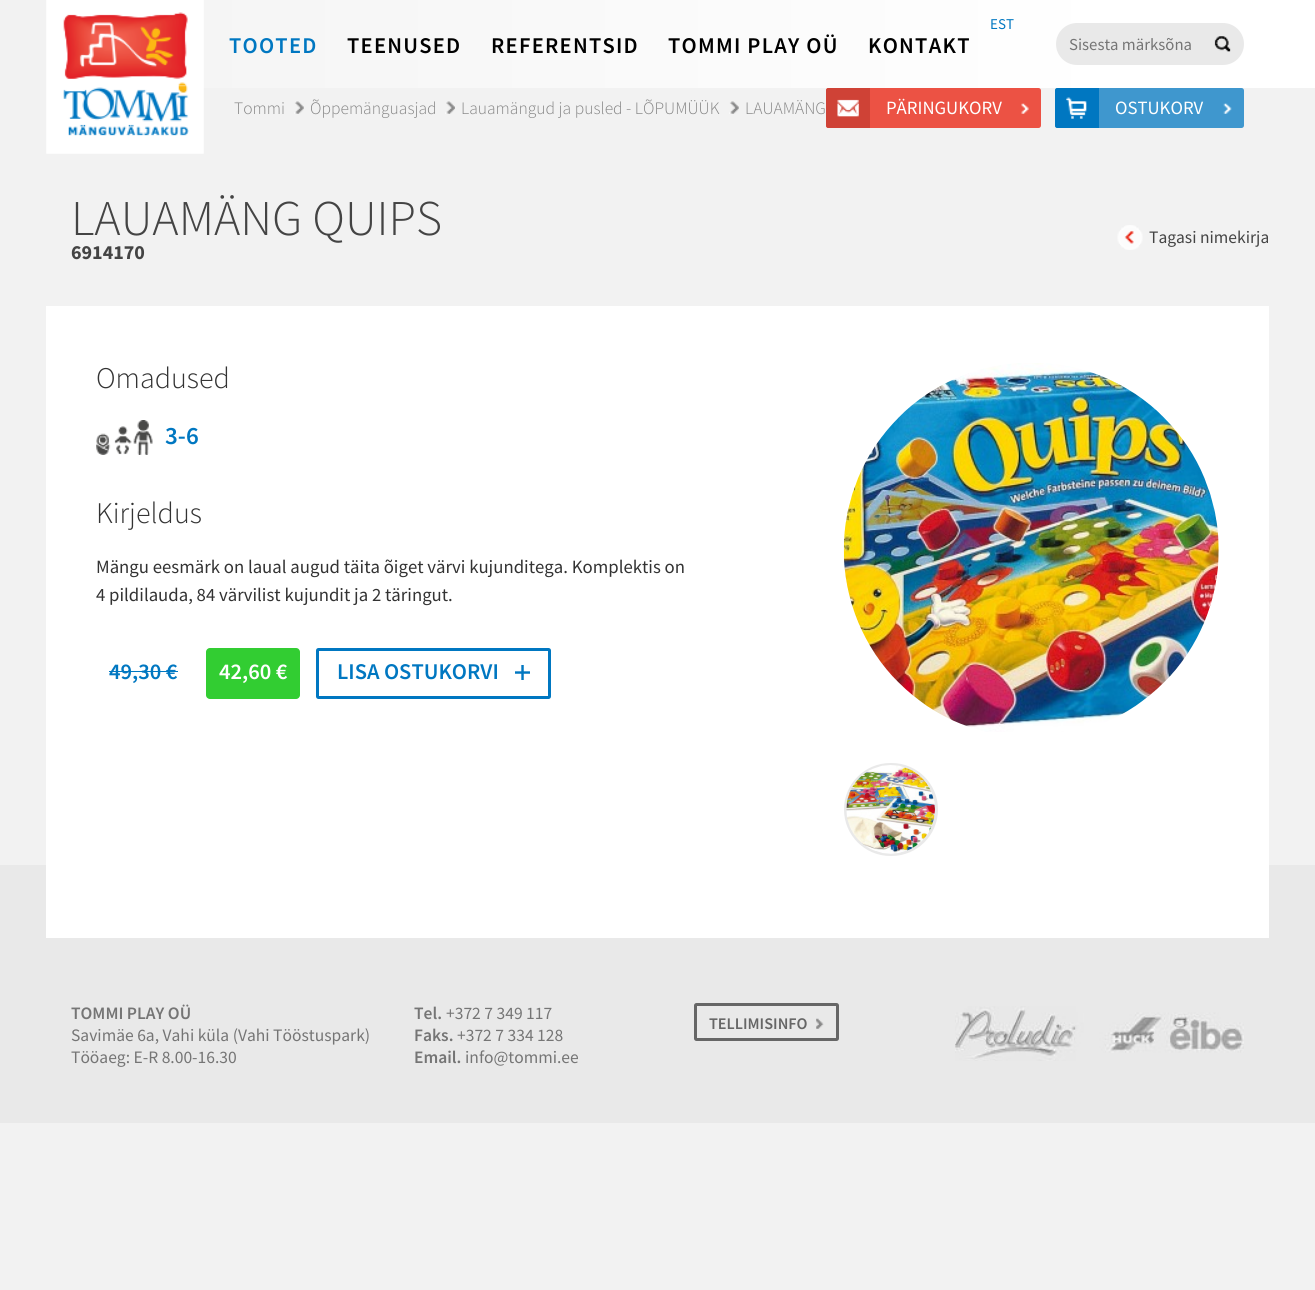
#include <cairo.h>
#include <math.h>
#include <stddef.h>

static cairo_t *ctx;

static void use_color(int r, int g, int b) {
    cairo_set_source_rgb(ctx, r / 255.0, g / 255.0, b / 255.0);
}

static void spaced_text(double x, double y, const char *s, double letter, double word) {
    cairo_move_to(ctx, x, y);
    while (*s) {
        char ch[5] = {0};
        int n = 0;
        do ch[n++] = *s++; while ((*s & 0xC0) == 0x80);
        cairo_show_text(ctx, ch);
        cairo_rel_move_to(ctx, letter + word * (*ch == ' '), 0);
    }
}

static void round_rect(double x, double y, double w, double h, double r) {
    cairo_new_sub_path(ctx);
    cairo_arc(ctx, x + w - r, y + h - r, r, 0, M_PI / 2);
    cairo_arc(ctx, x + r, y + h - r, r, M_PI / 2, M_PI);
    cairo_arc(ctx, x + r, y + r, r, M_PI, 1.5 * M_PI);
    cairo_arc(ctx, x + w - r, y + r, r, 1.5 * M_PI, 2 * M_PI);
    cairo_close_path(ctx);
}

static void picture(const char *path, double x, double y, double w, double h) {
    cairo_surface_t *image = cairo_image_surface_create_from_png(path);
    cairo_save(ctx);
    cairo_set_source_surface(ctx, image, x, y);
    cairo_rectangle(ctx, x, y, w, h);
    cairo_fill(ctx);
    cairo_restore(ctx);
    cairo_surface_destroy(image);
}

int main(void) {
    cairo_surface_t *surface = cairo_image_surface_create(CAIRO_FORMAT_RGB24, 1315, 1290);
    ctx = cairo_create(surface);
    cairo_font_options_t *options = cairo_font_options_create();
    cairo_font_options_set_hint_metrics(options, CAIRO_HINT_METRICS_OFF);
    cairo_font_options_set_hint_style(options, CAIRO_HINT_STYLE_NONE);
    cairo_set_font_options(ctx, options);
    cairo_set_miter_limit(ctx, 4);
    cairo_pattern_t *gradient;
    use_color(242, 242, 242);
    cairo_paint(ctx);
    gradient = cairo_pattern_create_linear(0, 44, 1315, 44);
    cairo_pattern_add_color_stop_rgba(gradient, 0, 0.953, 0.953, 0.953, 1);
    cairo_pattern_add_color_stop_rgba(gradient, 0.85, 1, 1, 1, 1);
    cairo_set_source(ctx, gradient);
    cairo_pattern_destroy(gradient);
    cairo_rectangle(ctx, 140, 0, 1175, 88);
    cairo_fill(ctx);
    picture("img1.png", 46, 0, 158, 154);
    cairo_select_font_face(ctx, "Source Sans Pro", CAIRO_FONT_SLANT_NORMAL, CAIRO_FONT_WEIGHT_NORMAL);
    cairo_set_font_size(ctx, 15);
    use_color(0, 119, 193);
    cairo_move_to(ctx, 990, 29);
    cairo_show_text(ctx, "EST");
    cairo_select_font_face(ctx, "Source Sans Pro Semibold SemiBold", CAIRO_FONT_SLANT_NORMAL, CAIRO_FONT_WEIGHT_NORMAL);
    cairo_set_font_size(ctx, 22.5);
    spaced_text(229, 53, "TOOTED", 1.25, 0);
    use_color(0, 0, 0);
    spaced_text(347, 53, "TEENUSED", 1.25, 0);
    spaced_text(491, 53, "REFERENTSID", 1.25, 0);
    spaced_text(668, 53, "TOMMI PLAY OÜ", 1.25, 0);
    spaced_text(868, 53, "KONTAKT", 1.25, 0);
    use_color(233, 233, 233);
    round_rect(1056, 23, 188, 42, 21);
    cairo_fill(ctx);
    cairo_select_font_face(ctx, "Source Sans Pro", CAIRO_FONT_SLANT_NORMAL, CAIRO_FONT_WEIGHT_NORMAL);
    cairo_set_font_size(ctx, 16.75);
    use_color(117, 117, 117);
    cairo_move_to(ctx, 1069, 50);
    cairo_show_text(ctx, "Sisesta märksõna");
    picture("img2.png", 1214, 36, 17, 16);
    use_color(236, 82, 68);
    round_rect(826, 88, 215, 40, 2.5);
    cairo_fill(ctx);
    use_color(207, 66, 54);
    cairo_new_path(ctx);
    cairo_move_to(ctx, 828.5, 88);
    cairo_line_to(ctx, 870, 88);
    cairo_line_to(ctx, 870, 128);
    cairo_line_to(ctx, 828.5, 128);
    cairo_curve_to(ctx, 827, 128, 826, 127, 826, 125.5);
    cairo_line_to(ctx, 826, 90.5);
    cairo_curve_to(ctx, 826, 89, 827, 88, 828.5, 88);
    cairo_close_path(ctx);
    cairo_fill(ctx);
    picture("img3.png", 837, 99, 22, 18);
    cairo_set_font_size(ctx, 18.75);
    use_color(255, 255, 255);
    cairo_move_to(ctx, 886, 114);
    cairo_show_text(ctx, "PÄRINGUKORV");
    picture("img4.png", 1021, 103, 8, 11);
    use_color(63, 151, 206);
    round_rect(1055, 88, 189, 40, 2.5);
    cairo_fill(ctx);
    use_color(0, 119, 193);
    cairo_new_path(ctx);
    cairo_move_to(ctx, 1057.5, 88);
    cairo_line_to(ctx, 1099, 88);
    cairo_line_to(ctx, 1099, 128);
    cairo_line_to(ctx, 1057.5, 128);
    cairo_curve_to(ctx, 1056, 128, 1055, 127, 1055, 125.5);
    cairo_line_to(ctx, 1055, 90.5);
    cairo_curve_to(ctx, 1055, 89, 1056, 88, 1057.5, 88);
    cairo_close_path(ctx);
    cairo_fill(ctx);
    picture("img5.png", 1066, 97, 21, 22);
    use_color(255, 255, 255);
    cairo_move_to(ctx, 1115, 114);
    cairo_show_text(ctx, "OSTUKORV");
    picture("img6.png", 1223, 103, 9, 11);
    cairo_select_font_face(ctx, "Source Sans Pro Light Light", CAIRO_FONT_SLANT_NORMAL, CAIRO_FONT_WEIGHT_NORMAL);
    cairo_set_font_size(ctx, 17.5);
    use_color(133, 133, 133);
    cairo_move_to(ctx, 234, 114);
    cairo_show_text(ctx, "Tommi");
    picture("img7.png", 294, 101, 10, 13);
    cairo_move_to(ctx, 310, 114);
    cairo_show_text(ctx, "Õppemänguasjad");
    picture("img8.png", 445, 101, 10, 13);
    cairo_move_to(ctx, 461, 114);
    cairo_show_text(ctx, "Lauamängud ja pusled - LÕPUMÜÜK");
    picture("img9.png", 729, 101, 10, 13);
    cairo_move_to(ctx, 745, 114);
    cairo_show_text(ctx, "LAUAMÄNG");
    cairo_set_font_size(ctx, 50);
    use_color(68, 68, 68);
    cairo_move_to(ctx, 71, 235);
    cairo_show_text(ctx, "LAUAMÄNG QUIPS");
    cairo_select_font_face(ctx, "Source Sans Pro", CAIRO_FONT_SLANT_NORMAL, CAIRO_FONT_WEIGHT_BOLD);
    cairo_set_font_size(ctx, 20);
    cairo_move_to(ctx, 71, 259);
    cairo_show_text(ctx, "6914170");
    picture("img10.png", 1117, 225, 26, 25);
    cairo_select_font_face(ctx, "Source Sans Pro", CAIRO_FONT_SLANT_NORMAL, CAIRO_FONT_WEIGHT_NORMAL);
    cairo_set_font_size(ctx, 17.5);
    cairo_move_to(ctx, 1149, 243);
    cairo_show_text(ctx, "Tagasi nimekirja");
    use_color(233, 233, 233);
    cairo_rectangle(ctx, 0, 865, 1315, 258);
    cairo_fill(ctx);
    use_color(255, 255, 255);
    cairo_rectangle(ctx, 46, 306, 1223, 632);
    cairo_fill(ctx);
    cairo_select_font_face(ctx, "Source Sans Pro Light Light", CAIRO_FONT_SLANT_NORMAL, CAIRO_FONT_WEIGHT_NORMAL);
    cairo_set_font_size(ctx, 30);
    use_color(51, 51, 51);
    cairo_move_to(ctx, 96, 388);
    cairo_show_text(ctx, "Omadused");
    picture("img11.png", 843, 363, 376, 369);
    round_rect(845.5, 764.5, 91, 90, 45);
    use_color(233, 233, 233);
    cairo_set_line_width(ctx, 3);
    cairo_stroke(ctx);
    picture("img12.png", 846, 765, 89, 89);
    picture("img13.png", 96, 420, 57, 35);
    cairo_select_font_face(ctx, "Source Sans Pro Semibold SemiBold", CAIRO_FONT_SLANT_NORMAL, CAIRO_FONT_WEIGHT_NORMAL);
    cairo_set_font_size(ctx, 25);
    use_color(0, 119, 193);
    cairo_move_to(ctx, 165, 444);
    cairo_show_text(ctx, "3-6");
    cairo_select_font_face(ctx, "Source Sans Pro Light Light", CAIRO_FONT_SLANT_NORMAL, CAIRO_FONT_WEIGHT_NORMAL);
    cairo_set_font_size(ctx, 30);
    use_color(51, 51, 51);
    cairo_move_to(ctx, 96, 523);
    cairo_show_text(ctx, "Kirjeldus");
    cairo_select_font_face(ctx, "Source Sans Pro", CAIRO_FONT_SLANT_NORMAL, CAIRO_FONT_WEIGHT_NORMAL);
    cairo_set_font_size(ctx, 18.75);
    cairo_move_to(ctx, 96, 573);
    cairo_show_text(ctx, "Mängu eesmärk on laual augud täita õiget värvi kujunditega. Komplektis on");
    cairo_move_to(ctx, 96, 601);
    cairo_show_text(ctx, "4 pildilauda, 84 värvilist kujundit ja 2 täringut.");
    cairo_select_font_face(ctx, "Source Sans Pro Semibold SemiBold", CAIRO_FONT_SLANT_NORMAL, CAIRO_FONT_WEIGHT_NORMAL);
    cairo_set_font_size(ctx, 22.5);
    use_color(0, 119, 193);
    cairo_move_to(ctx, 109, 679);
    cairo_show_text(ctx, "49,30 €");
    cairo_rectangle(ctx, 109, 671, 69, 1);
    cairo_fill(ctx);
    use_color(50, 205, 50);
    round_rect(206, 648, 94, 51, 4);
    cairo_fill(ctx);
    use_color(255, 255, 255);
    cairo_move_to(ctx, 219, 679);
    cairo_show_text(ctx, "42,60 €");
    round_rect(317.5, 649.5, 232, 48, 1);
    use_color(0, 119, 193);
    cairo_stroke(ctx);
    cairo_move_to(ctx, 337, 679);
    cairo_show_text(ctx, "LISA OSTUKORVI");
    picture("img14.png", 515, 665, 15, 15);
    cairo_set_font_size(ctx, 17.5);
    use_color(117, 117, 117);
    cairo_move_to(ctx, 71, 1019);
    cairo_show_text(ctx, "TOMMI PLAY OÜ");
    cairo_select_font_face(ctx, "Source Sans Pro", CAIRO_FONT_SLANT_NORMAL, CAIRO_FONT_WEIGHT_NORMAL);
    cairo_move_to(ctx, 71, 1041);
    cairo_show_text(ctx, "Savimäe 6a, Vahi küla (Vahi Tööstuspark)");
    cairo_move_to(ctx, 71, 1063);
    cairo_show_text(ctx, "Tööaeg: E-R 8.00-16.30");
    cairo_select_font_face(ctx, "Source Sans Pro Semibold SemiBold", CAIRO_FONT_SLANT_NORMAL, CAIRO_FONT_WEIGHT_NORMAL);
    cairo_move_to(ctx, 414, 1019);
    cairo_show_text(ctx, "Tel.");
    cairo_select_font_face(ctx, "Source Sans Pro", CAIRO_FONT_SLANT_NORMAL, CAIRO_FONT_WEIGHT_NORMAL);
    cairo_move_to(ctx, 446, 1019);
    cairo_show_text(ctx, "+372 7 349 117");
    cairo_select_font_face(ctx, "Source Sans Pro Semibold SemiBold", CAIRO_FONT_SLANT_NORMAL, CAIRO_FONT_WEIGHT_NORMAL);
    cairo_move_to(ctx, 414, 1041);
    cairo_show_text(ctx, "Faks.");
    cairo_select_font_face(ctx, "Source Sans Pro", CAIRO_FONT_SLANT_NORMAL, CAIRO_FONT_WEIGHT_NORMAL);
    cairo_move_to(ctx, 457, 1041);
    cairo_show_text(ctx, "+372 7 334 128");
    cairo_select_font_face(ctx, "Source Sans Pro Semibold SemiBold", CAIRO_FONT_SLANT_NORMAL, CAIRO_FONT_WEIGHT_NORMAL);
    cairo_move_to(ctx, 414, 1063);
    cairo_show_text(ctx, "Email.");
    cairo_select_font_face(ctx, "Source Sans Pro", CAIRO_FONT_SLANT_NORMAL, CAIRO_FONT_WEIGHT_NORMAL);
    cairo_move_to(ctx, 465, 1063);
    cairo_show_text(ctx, "info@tommi.ee");
    round_rect(695.5, 1004.5, 142, 35, 1);
    use_color(102, 102, 102);
    cairo_stroke(ctx);
    cairo_select_font_face(ctx, "Source Sans Pro Semibold SemiBold", CAIRO_FONT_SLANT_NORMAL, CAIRO_FONT_WEIGHT_NORMAL);
    cairo_set_font_size(ctx, 16.25);
    cairo_move_to(ctx, 709, 1029);
    cairo_show_text(ctx, "TELLIMISINFO");
    picture("img15.png", 816, 1018, 8, 11);
    picture("img16.png", 955, 1006, 289, 55);
    cairo_surface_write_to_png(surface, "result.png");
    cairo_font_options_destroy(options);
    cairo_destroy(ctx);
    cairo_surface_destroy(surface);
    return 0;
}
